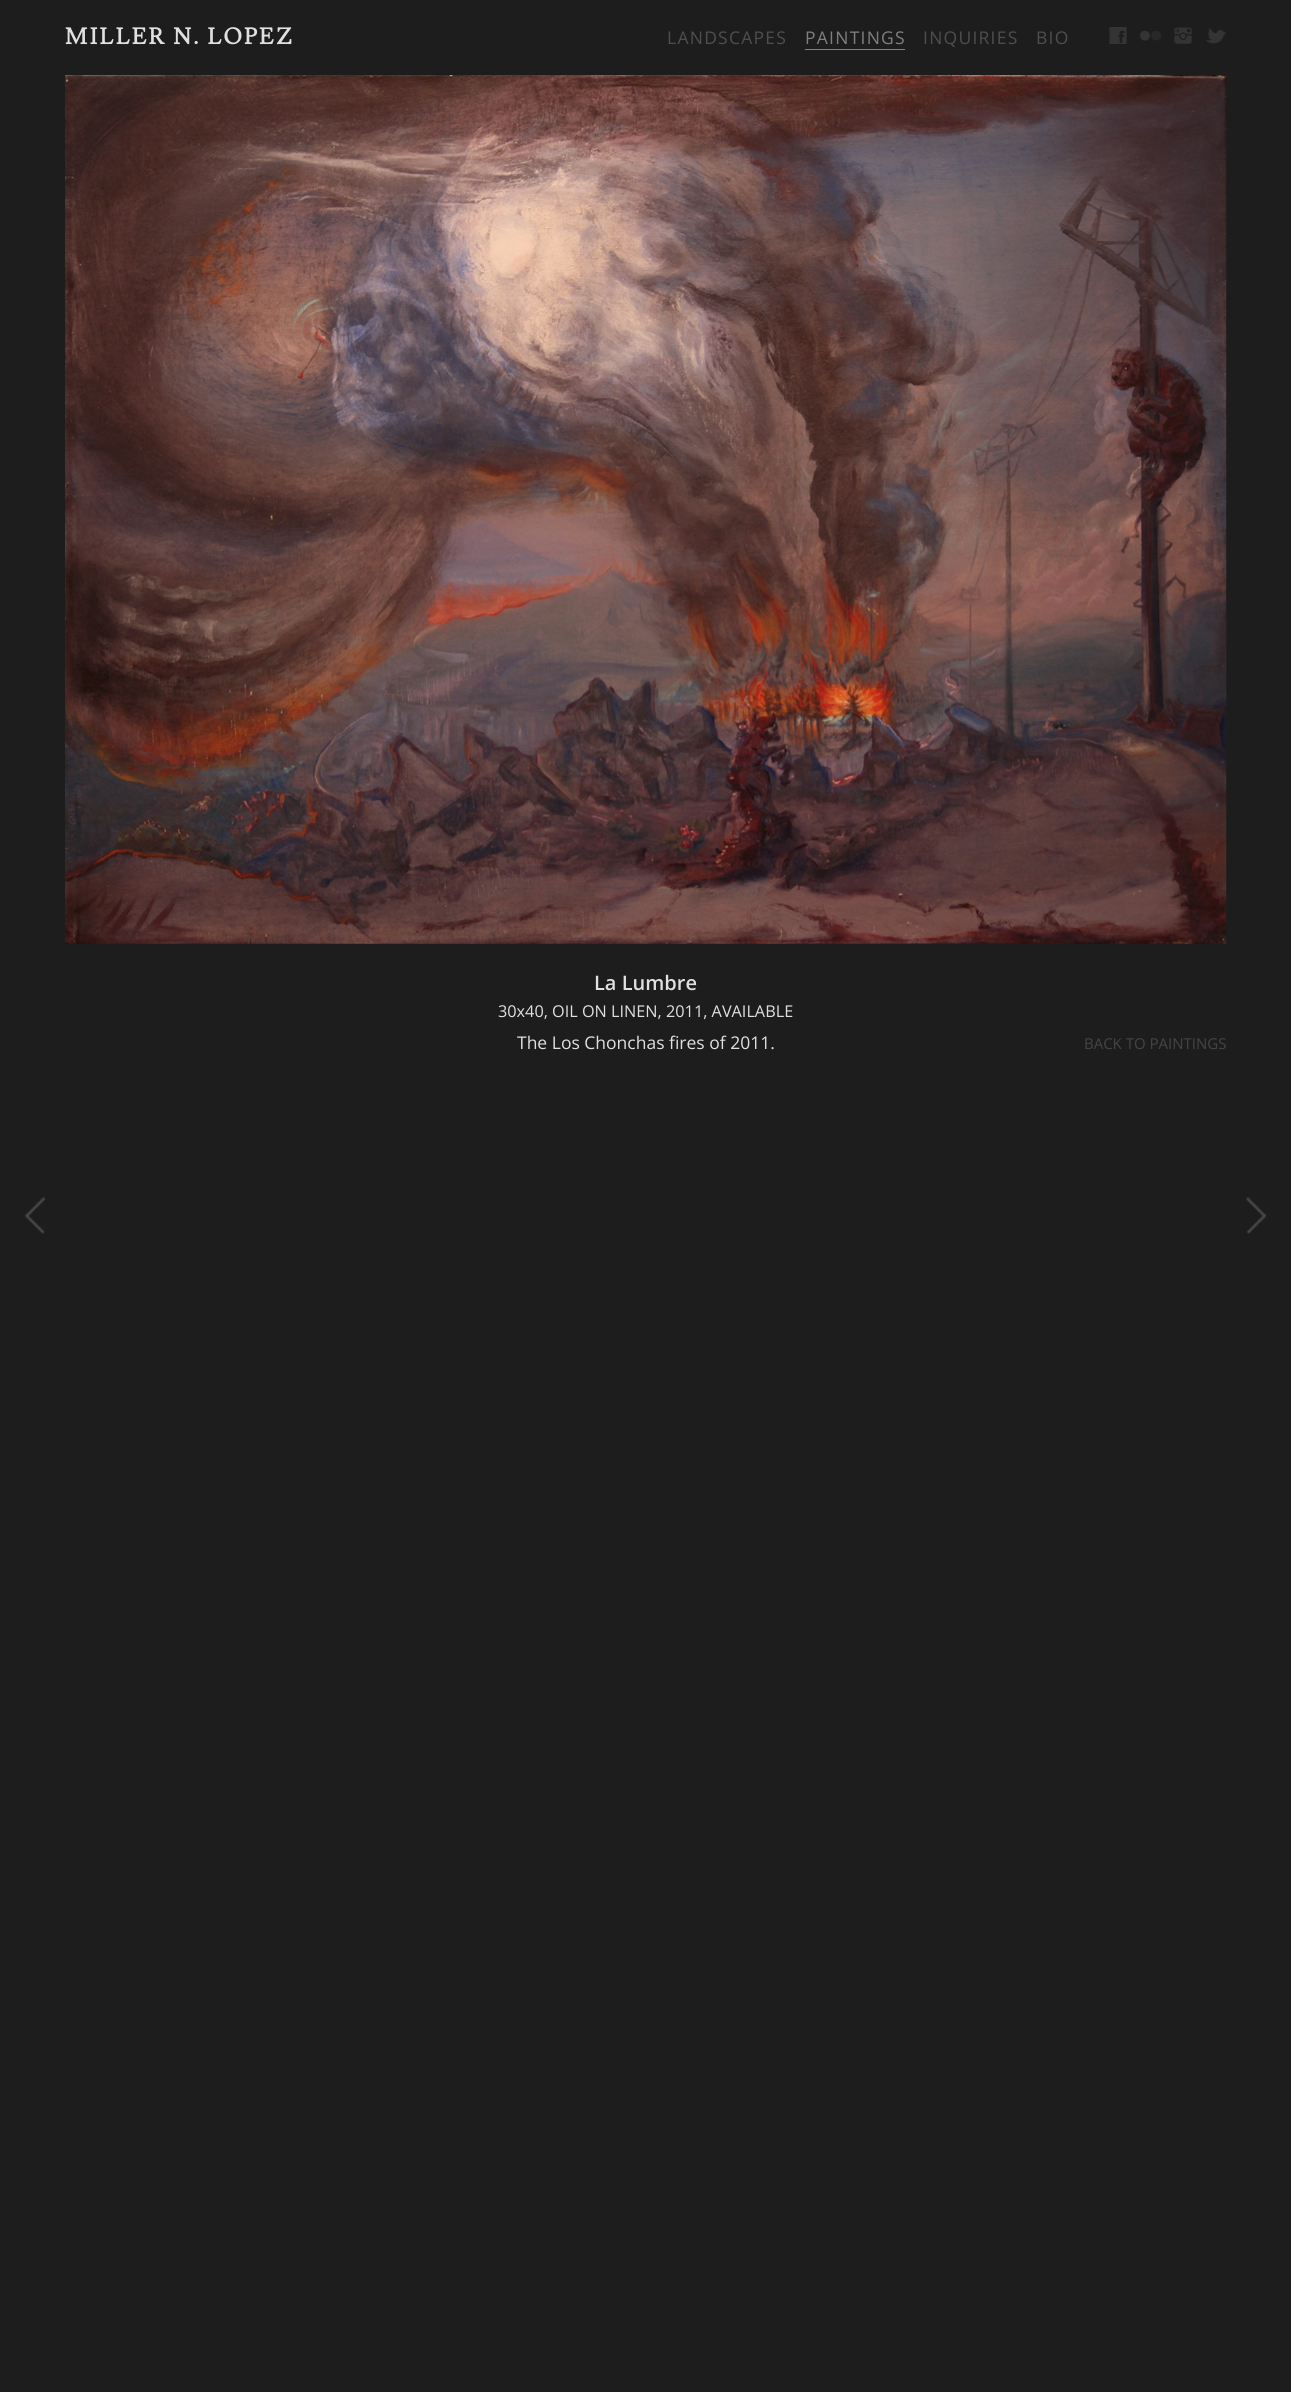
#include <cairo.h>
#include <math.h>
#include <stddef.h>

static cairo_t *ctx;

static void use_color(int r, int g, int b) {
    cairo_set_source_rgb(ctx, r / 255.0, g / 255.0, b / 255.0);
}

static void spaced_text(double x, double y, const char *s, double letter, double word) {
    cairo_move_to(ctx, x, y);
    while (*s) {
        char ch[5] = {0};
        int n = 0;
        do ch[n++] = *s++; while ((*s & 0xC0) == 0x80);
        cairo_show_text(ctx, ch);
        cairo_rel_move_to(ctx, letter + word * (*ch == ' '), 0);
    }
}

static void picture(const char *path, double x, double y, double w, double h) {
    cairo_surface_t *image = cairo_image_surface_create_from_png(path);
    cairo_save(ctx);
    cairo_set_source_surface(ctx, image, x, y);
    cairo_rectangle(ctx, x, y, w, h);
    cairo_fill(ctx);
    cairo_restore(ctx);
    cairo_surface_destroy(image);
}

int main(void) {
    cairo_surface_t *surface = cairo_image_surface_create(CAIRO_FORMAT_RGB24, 1291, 2392);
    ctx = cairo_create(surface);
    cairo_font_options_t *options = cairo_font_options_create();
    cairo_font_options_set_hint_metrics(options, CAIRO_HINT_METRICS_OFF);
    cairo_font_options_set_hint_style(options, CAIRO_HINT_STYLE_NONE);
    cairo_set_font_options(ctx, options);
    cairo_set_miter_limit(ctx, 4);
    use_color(29, 29, 29);
    cairo_paint(ctx);
    cairo_select_font_face(ctx, "Lusitana", CAIRO_FONT_SLANT_NORMAL, CAIRO_FONT_WEIGHT_BOLD);
    cairo_set_font_size(ctx, 22.5);
    use_color(224, 224, 224);
    spaced_text(65, 44, "MILLER N. LOPEZ", 2.25, 0);
    cairo_select_font_face(ctx, "Open Sans", CAIRO_FONT_SLANT_NORMAL, CAIRO_FONT_WEIGHT_NORMAL);
    cairo_set_font_size(ctx, 17.5);
    use_color(78, 78, 78);
    spaced_text(667, 44, "LANDSCAPES", 1.25, 0);
    use_color(127, 127, 127);
    spaced_text(805, 44, "PAINTINGS", 1.25, 0);
    cairo_rectangle(ctx, 805, 49, 100, 1);
    cairo_fill(ctx);
    use_color(78, 78, 78);
    spaced_text(923, 44, "INQUIRIES", 1.25, 0);
    spaced_text(1036, 44, "BIO", 1.25, 0);
    picture("img1.png", 1109, 27, 18, 17);
    picture("img2.png", 1139, 30, 22, 11);
    picture("img3.png", 1174, 27, 18, 17);
    picture("img4.png", 1206, 28, 20, 16);
    picture("img5.png", 65, 75, 1162, 869);
    cairo_select_font_face(ctx, "Open Sans SemiBold", CAIRO_FONT_SLANT_NORMAL, CAIRO_FONT_WEIGHT_NORMAL);
    cairo_set_font_size(ctx, 20);
    use_color(224, 224, 224);
    cairo_move_to(ctx, 594, 990);
    cairo_show_text(ctx, "La Lumbre");
    cairo_select_font_face(ctx, "Open Sans", CAIRO_FONT_SLANT_NORMAL, CAIRO_FONT_WEIGHT_NORMAL);
    cairo_set_font_size(ctx, 16.25);
    cairo_move_to(ctx, 498, 1017);
    cairo_show_text(ctx, "30x40, OIL ON LINEN, 2011, AVAILABLE");
    cairo_set_font_size(ctx, 17.5);
    cairo_move_to(ctx, 517, 1049);
    cairo_show_text(ctx, "The Los Chonchas fires of 2011.");
    cairo_set_font_size(ctx, 15);
    use_color(68, 68, 68);
    cairo_move_to(ctx, 1084, 1049);
    cairo_show_text(ctx, "BACK TO PAINTINGS");
    picture("img6.png", 25, 1197, 20, 37);
    picture("img7.png", 1246, 1197, 21, 37);
    cairo_surface_write_to_png(surface, "result.png");
    cairo_font_options_destroy(options);
    cairo_destroy(ctx);
    cairo_surface_destroy(surface);
    return 0;
}
